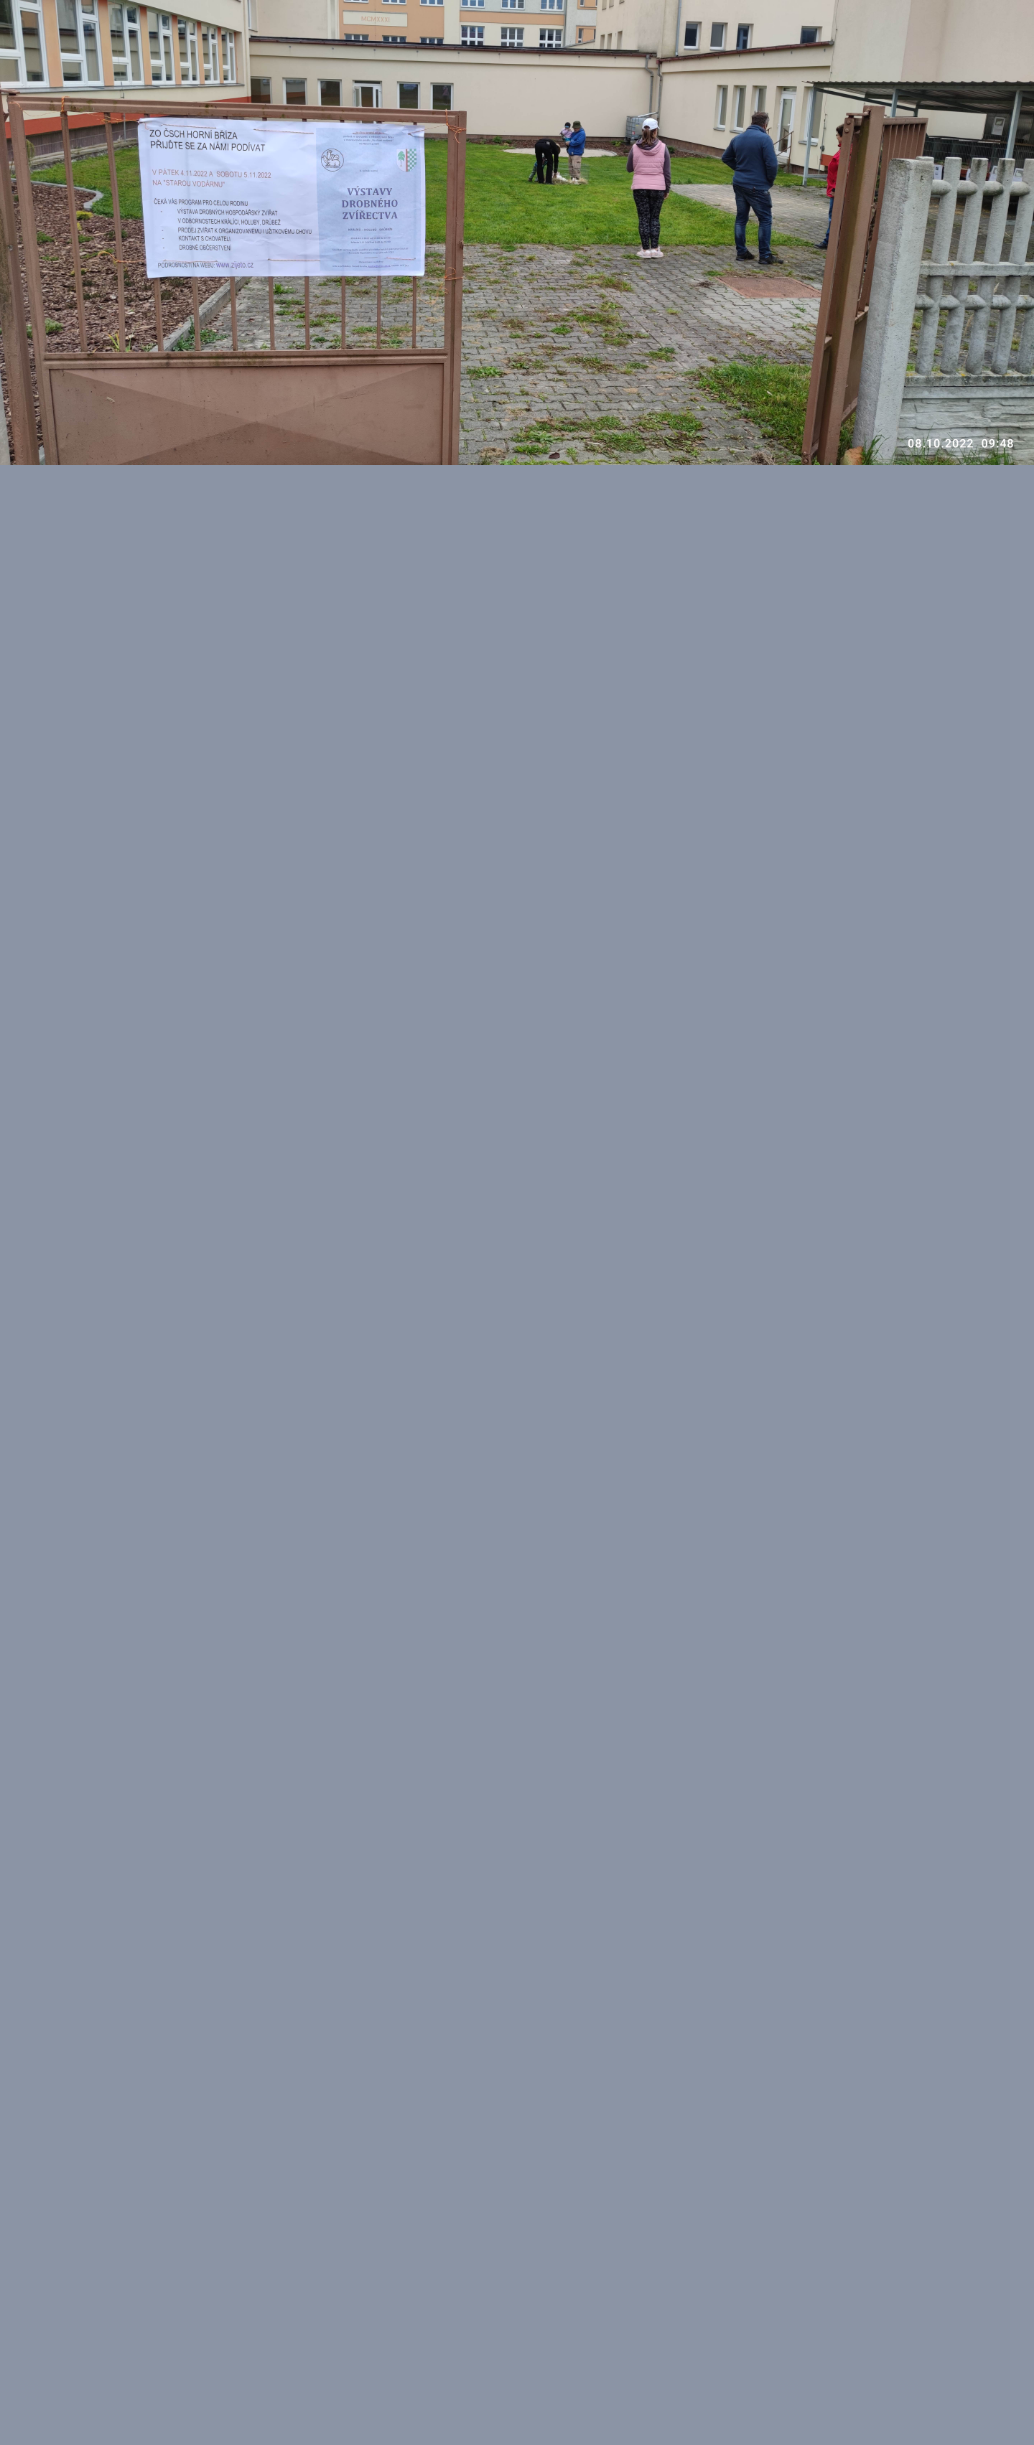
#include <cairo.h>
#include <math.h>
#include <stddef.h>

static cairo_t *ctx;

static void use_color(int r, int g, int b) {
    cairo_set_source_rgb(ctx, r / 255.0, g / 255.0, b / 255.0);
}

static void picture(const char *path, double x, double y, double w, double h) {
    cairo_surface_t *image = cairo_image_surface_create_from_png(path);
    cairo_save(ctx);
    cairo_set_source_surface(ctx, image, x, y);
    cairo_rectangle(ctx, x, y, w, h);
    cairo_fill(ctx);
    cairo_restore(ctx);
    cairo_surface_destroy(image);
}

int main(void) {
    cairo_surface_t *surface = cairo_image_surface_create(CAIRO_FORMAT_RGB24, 1034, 2445);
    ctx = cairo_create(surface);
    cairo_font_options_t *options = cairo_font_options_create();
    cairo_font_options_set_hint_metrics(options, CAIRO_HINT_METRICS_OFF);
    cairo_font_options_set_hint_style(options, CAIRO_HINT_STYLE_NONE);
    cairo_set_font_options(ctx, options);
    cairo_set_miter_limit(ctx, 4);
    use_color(139, 148, 165);
    cairo_paint(ctx);
    picture("img1.png", 0, 0, 1034, 465);
    cairo_surface_write_to_png(surface, "result.png");
    cairo_font_options_destroy(options);
    cairo_destroy(ctx);
    cairo_surface_destroy(surface);
    return 0;
}
